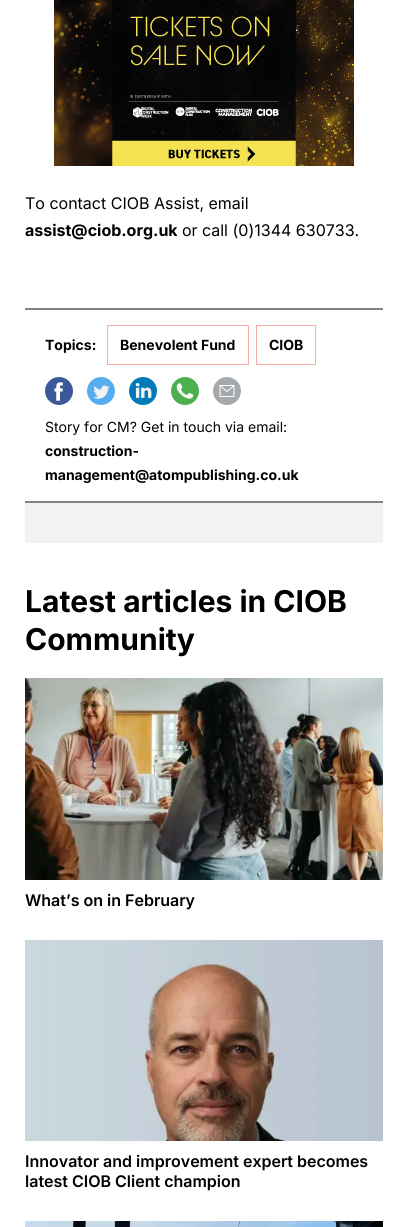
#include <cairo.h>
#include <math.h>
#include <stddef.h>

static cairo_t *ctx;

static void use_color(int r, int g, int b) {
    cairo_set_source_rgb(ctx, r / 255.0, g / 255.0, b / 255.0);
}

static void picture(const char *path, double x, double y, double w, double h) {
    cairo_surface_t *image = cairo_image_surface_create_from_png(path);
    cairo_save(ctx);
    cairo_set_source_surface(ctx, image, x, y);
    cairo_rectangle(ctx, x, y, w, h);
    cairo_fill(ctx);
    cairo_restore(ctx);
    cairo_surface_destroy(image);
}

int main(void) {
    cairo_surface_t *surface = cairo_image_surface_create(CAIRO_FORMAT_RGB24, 408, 1227);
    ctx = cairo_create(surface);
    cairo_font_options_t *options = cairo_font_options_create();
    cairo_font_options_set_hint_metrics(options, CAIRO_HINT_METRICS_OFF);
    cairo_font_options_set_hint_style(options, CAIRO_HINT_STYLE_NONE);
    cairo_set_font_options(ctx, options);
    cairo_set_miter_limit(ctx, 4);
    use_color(255, 255, 255);
    cairo_paint(ctx);
    picture("img1.png", 54, 0, 300, 166);
    cairo_select_font_face(ctx, "Inter", CAIRO_FONT_SLANT_NORMAL, CAIRO_FONT_WEIGHT_NORMAL);
    cairo_set_font_size(ctx, 16);
    use_color(1, 0, 0);
    cairo_move_to(ctx, 25, 209);
    cairo_show_text(ctx, "To contact CIOB Assist, email");
    cairo_select_font_face(ctx, "Inter", CAIRO_FONT_SLANT_NORMAL, CAIRO_FONT_WEIGHT_BOLD);
    cairo_move_to(ctx, 25, 236);
    cairo_show_text(ctx, "assist@ciob.org.uk");
    cairo_select_font_face(ctx, "Inter", CAIRO_FONT_SLANT_NORMAL, CAIRO_FONT_WEIGHT_NORMAL);
    cairo_move_to(ctx, 182, 236);
    cairo_show_text(ctx, "or call (0)1344 630733.");
    use_color(126, 129, 134);
    cairo_rectangle(ctx, 25, 308, 358, 2);
    cairo_fill(ctx);
    cairo_rectangle(ctx, 25, 501, 358, 2);
    cairo_fill(ctx);
    cairo_select_font_face(ctx, "Inter", CAIRO_FONT_SLANT_NORMAL, CAIRO_FONT_WEIGHT_BOLD);
    cairo_set_font_size(ctx, 14);
    use_color(1, 0, 0);
    cairo_move_to(ctx, 45, 350);
    cairo_show_text(ctx, "Topics:");
    cairo_rectangle(ctx, 107.5, 325.5, 141, 39);
    use_color(252, 169, 169);
    cairo_set_line_width(ctx, 1);
    cairo_stroke(ctx);
    use_color(1, 0, 0);
    cairo_move_to(ctx, 120, 350);
    cairo_show_text(ctx, "Benevolent Fund");
    cairo_rectangle(ctx, 256.5, 325.5, 59, 39);
    use_color(252, 169, 169);
    cairo_stroke(ctx);
    use_color(1, 0, 0);
    cairo_move_to(ctx, 269, 350);
    cairo_show_text(ctx, "CIOB");
    picture("img2.png", 45, 377, 28, 28);
    picture("img3.png", 87, 377, 28, 28);
    picture("img4.png", 129, 377, 28, 28);
    picture("img5.png", 171, 377, 28, 28);
    picture("img6.png", 213, 377, 28, 28);
    cairo_select_font_face(ctx, "Inter", CAIRO_FONT_SLANT_NORMAL, CAIRO_FONT_WEIGHT_NORMAL);
    cairo_move_to(ctx, 45, 432);
    cairo_show_text(ctx, "Story for CM? Get in touch via email:");
    cairo_select_font_face(ctx, "Inter", CAIRO_FONT_SLANT_NORMAL, CAIRO_FONT_WEIGHT_BOLD);
    cairo_move_to(ctx, 45, 456);
    cairo_show_text(ctx, "construction-");
    cairo_move_to(ctx, 45, 480);
    cairo_show_text(ctx, "management@atompublishing.co.uk");
    use_color(242, 242, 242);
    cairo_rectangle(ctx, 25, 503, 358, 40);
    cairo_fill(ctx);
    cairo_set_font_size(ctx, 30);
    use_color(1, 0, 0);
    cairo_move_to(ctx, 25, 612);
    cairo_show_text(ctx, "Latest articles in CIOB");
    cairo_move_to(ctx, 25, 650);
    cairo_show_text(ctx, "Community");
    picture("img7.png", 25, 678, 358, 202);
    cairo_select_font_face(ctx, "Inter SemiBold", CAIRO_FONT_SLANT_NORMAL, CAIRO_FONT_WEIGHT_NORMAL);
    cairo_set_font_size(ctx, 16);
    cairo_move_to(ctx, 25, 906);
    cairo_show_text(ctx, "What’s on in February");
    picture("img8.png", 25, 940, 358, 201);
    cairo_move_to(ctx, 25, 1167);
    cairo_show_text(ctx, "Innovator and improvement expert becomes");
    cairo_move_to(ctx, 25, 1187);
    cairo_show_text(ctx, "latest CIOB Client champion");
    picture("img9.png", 25, 1221, 358, 6);
    cairo_surface_write_to_png(surface, "result.png");
    cairo_font_options_destroy(options);
    cairo_destroy(ctx);
    cairo_surface_destroy(surface);
    return 0;
}
